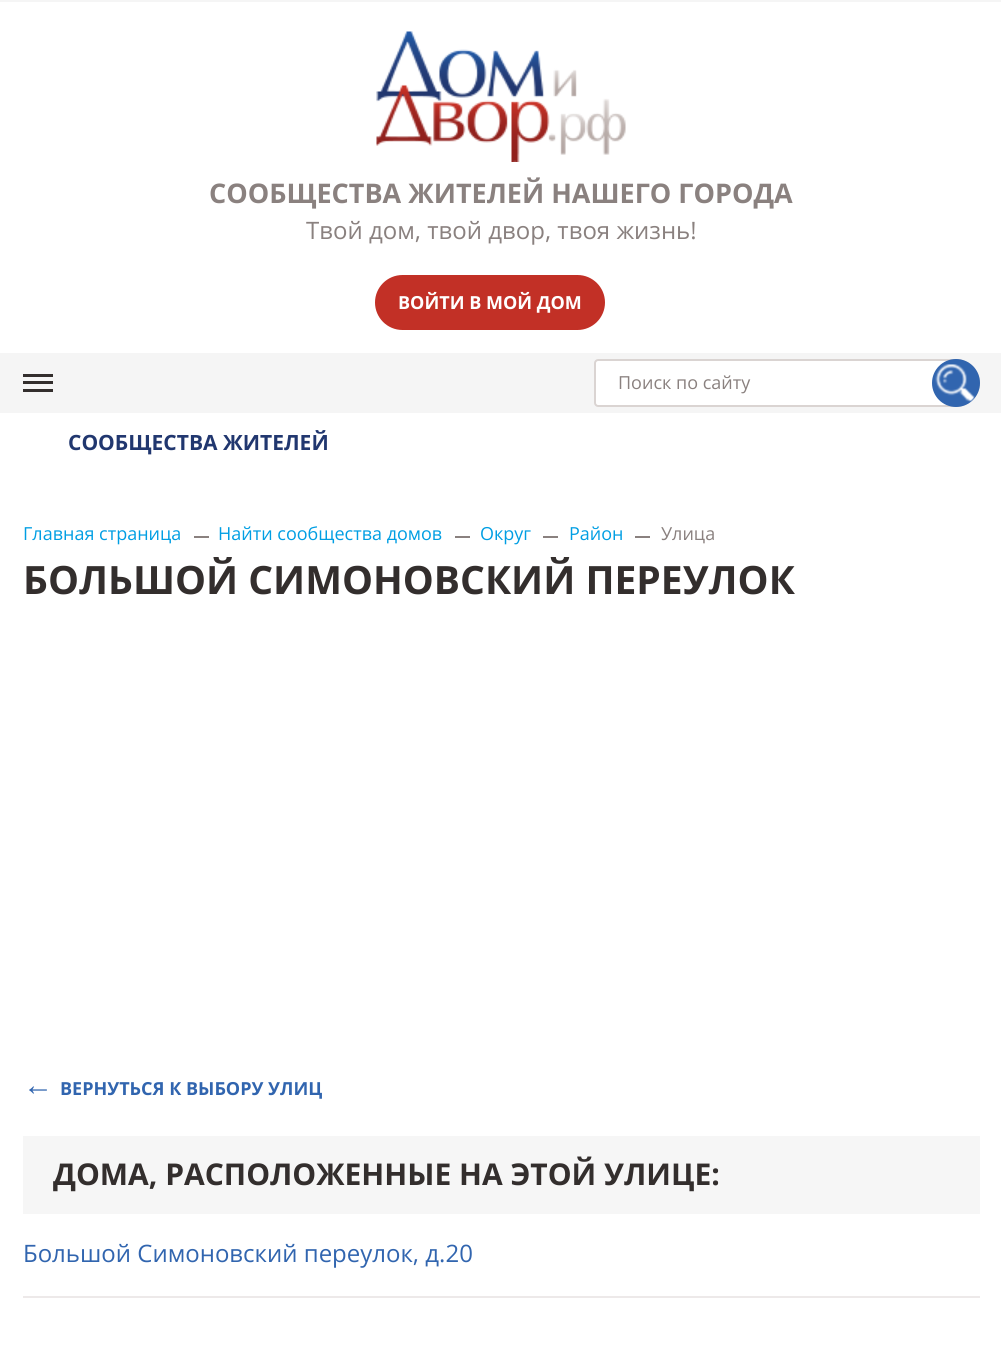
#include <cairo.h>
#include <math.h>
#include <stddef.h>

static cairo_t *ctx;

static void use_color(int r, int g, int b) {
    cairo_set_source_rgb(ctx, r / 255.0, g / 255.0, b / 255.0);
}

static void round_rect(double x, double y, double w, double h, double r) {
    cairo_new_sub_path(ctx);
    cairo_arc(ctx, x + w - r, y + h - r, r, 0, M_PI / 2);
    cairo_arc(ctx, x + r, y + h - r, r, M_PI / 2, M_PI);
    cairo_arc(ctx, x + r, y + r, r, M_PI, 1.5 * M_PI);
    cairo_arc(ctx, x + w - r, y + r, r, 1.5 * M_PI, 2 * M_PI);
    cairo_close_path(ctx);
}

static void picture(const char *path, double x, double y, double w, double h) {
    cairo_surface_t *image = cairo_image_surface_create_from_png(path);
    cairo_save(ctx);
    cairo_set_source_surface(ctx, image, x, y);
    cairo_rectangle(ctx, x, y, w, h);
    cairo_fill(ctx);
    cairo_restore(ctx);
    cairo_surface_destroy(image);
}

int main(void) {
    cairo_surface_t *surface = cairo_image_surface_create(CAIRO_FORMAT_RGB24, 1001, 1361);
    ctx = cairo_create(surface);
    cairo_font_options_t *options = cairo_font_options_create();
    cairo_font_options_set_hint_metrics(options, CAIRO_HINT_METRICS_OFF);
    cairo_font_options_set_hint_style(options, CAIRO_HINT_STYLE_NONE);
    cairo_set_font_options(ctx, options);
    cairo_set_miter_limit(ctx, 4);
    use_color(255, 255, 255);
    cairo_paint(ctx);
    use_color(245, 245, 245);
    cairo_rectangle(ctx, 0, 0, 1001, 2);
    cairo_fill(ctx);
    cairo_rectangle(ctx, 0, 353, 1001, 60);
    cairo_fill(ctx);
    picture("img1.png", 376, 31, 250, 131);
    cairo_select_font_face(ctx, "Open Sans", CAIRO_FONT_SLANT_NORMAL, CAIRO_FONT_WEIGHT_BOLD);
    cairo_set_font_size(ctx, 27);
    use_color(138, 129, 127);
    cairo_move_to(ctx, 209, 203);
    cairo_show_text(ctx, "СООБЩЕСТВА ЖИТЕЛЕЙ НАШЕГО ГОРОДА");
    cairo_select_font_face(ctx, "Open Sans", CAIRO_FONT_SLANT_NORMAL, CAIRO_FONT_WEIGHT_NORMAL);
    cairo_set_font_size(ctx, 24);
    cairo_move_to(ctx, 306, 239);
    cairo_show_text(ctx, "Твой дом, твой двор, твоя жизнь!");
    use_color(51, 46, 45);
    cairo_rectangle(ctx, 23, 381, 30, 3);
    cairo_fill(ctx);
    cairo_rectangle(ctx, 23, 374, 30, 3);
    cairo_fill(ctx);
    cairo_rectangle(ctx, 23, 389, 30, 3);
    cairo_fill(ctx);
    use_color(194, 48, 38);
    round_rect(375, 275, 230, 55, 27.5);
    cairo_fill(ctx);
    cairo_select_font_face(ctx, "Open Sans", CAIRO_FONT_SLANT_NORMAL, CAIRO_FONT_WEIGHT_BOLD);
    cairo_set_font_size(ctx, 18);
    use_color(255, 255, 255);
    cairo_move_to(ctx, 398, 309);
    cairo_show_text(ctx, "ВОЙТИ В МОЙ ДОМ");
    cairo_new_path(ctx);
    cairo_move_to(ctx, 598, 360);
    cairo_line_to(ctx, 956, 360);
    cairo_curve_to(ctx, 968.5, 360, 979, 370.5, 979, 383);
    cairo_curve_to(ctx, 979, 395.5, 968.5, 406, 956, 406);
    cairo_line_to(ctx, 598, 406);
    cairo_curve_to(ctx, 596.5, 406, 595, 404.5, 595, 403);
    cairo_line_to(ctx, 595, 363);
    cairo_curve_to(ctx, 595, 361.5, 596.5, 360, 598, 360);
    cairo_close_path(ctx);
    cairo_fill_preserve(ctx);
    use_color(218, 212, 210);
    cairo_stroke(ctx);
    cairo_select_font_face(ctx, "Open Sans", CAIRO_FONT_SLANT_NORMAL, CAIRO_FONT_WEIGHT_NORMAL);
    use_color(138, 129, 127);
    cairo_move_to(ctx, 618, 389);
    cairo_show_text(ctx, "Поиск по сайту");
    use_color(49, 101, 175);
    cairo_new_path(ctx);
    cairo_arc(ctx, 956, 383, 24, 0, 2 * M_PI);
    cairo_fill(ctx);
    picture("img2.png", 935, 364, 40, 38);
    cairo_select_font_face(ctx, "Open Sans", CAIRO_FONT_SLANT_NORMAL, CAIRO_FONT_WEIGHT_BOLD);
    cairo_set_font_size(ctx, 21);
    use_color(33, 55, 111);
    cairo_move_to(ctx, 68, 450);
    cairo_show_text(ctx, "СООБЩЕСТВА ЖИТЕЛЕЙ");
    cairo_select_font_face(ctx, "Open Sans", CAIRO_FONT_SLANT_NORMAL, CAIRO_FONT_WEIGHT_NORMAL);
    cairo_set_font_size(ctx, 18);
    use_color(0, 158, 227);
    cairo_move_to(ctx, 23, 540);
    cairo_show_text(ctx, "Главная страница");
    use_color(138, 129, 127);
    cairo_rectangle(ctx, 194, 536, 15, 2);
    cairo_fill(ctx);
    use_color(0, 158, 227);
    cairo_move_to(ctx, 218, 540);
    cairo_show_text(ctx, "Найти сообщества домов");
    use_color(138, 129, 127);
    cairo_rectangle(ctx, 455, 536, 15, 2);
    cairo_fill(ctx);
    use_color(0, 158, 227);
    cairo_move_to(ctx, 480, 540);
    cairo_show_text(ctx, "Округ");
    use_color(138, 129, 127);
    cairo_rectangle(ctx, 543, 536, 15, 2);
    cairo_fill(ctx);
    use_color(0, 158, 227);
    cairo_move_to(ctx, 569, 540);
    cairo_show_text(ctx, "Район");
    use_color(138, 129, 127);
    cairo_rectangle(ctx, 635, 536, 15, 2);
    cairo_fill(ctx);
    cairo_move_to(ctx, 661, 540);
    cairo_show_text(ctx, "Улица");
    cairo_select_font_face(ctx, "Open Sans", CAIRO_FONT_SLANT_NORMAL, CAIRO_FONT_WEIGHT_BOLD);
    cairo_set_font_size(ctx, 39);
    use_color(51, 46, 45);
    cairo_move_to(ctx, 23, 594);
    cairo_show_text(ctx, "БОЛЬШОЙ СИМОНОВСКИЙ ПЕРЕУЛОК");
    cairo_select_font_face(ctx, "Liberation Sans", CAIRO_FONT_SLANT_NORMAL, CAIRO_FONT_WEIGHT_BOLD);
    cairo_set_font_size(ctx, 30);
    use_color(49, 101, 175);
    cairo_move_to(ctx, 23, 1095);
    cairo_show_text(ctx, "←");
    cairo_select_font_face(ctx, "Open Sans", CAIRO_FONT_SLANT_NORMAL, CAIRO_FONT_WEIGHT_BOLD);
    cairo_set_font_size(ctx, 18);
    cairo_move_to(ctx, 60, 1095);
    cairo_show_text(ctx, "ВЕРНУТЬСЯ К ВЫБОРУ УЛИЦ");
    use_color(246, 246, 246);
    cairo_rectangle(ctx, 23, 1136, 957, 78);
    cairo_fill(ctx);
    cairo_set_font_size(ctx, 30);
    use_color(51, 46, 45);
    cairo_move_to(ctx, 53, 1185);
    cairo_show_text(ctx, "ДОМА, РАСПОЛОЖЕННЫЕ НА ЭТОЙ УЛИЦЕ:");
    use_color(237, 233, 233);
    cairo_rectangle(ctx, 23, 1296, 957, 2);
    cairo_fill(ctx);
    cairo_select_font_face(ctx, "Open Sans", CAIRO_FONT_SLANT_NORMAL, CAIRO_FONT_WEIGHT_NORMAL);
    cairo_set_font_size(ctx, 24);
    use_color(49, 101, 175);
    cairo_move_to(ctx, 23, 1262);
    cairo_show_text(ctx, "Большой Симоновский переулок, д.20");
    cairo_surface_write_to_png(surface, "result.png");
    cairo_font_options_destroy(options);
    cairo_destroy(ctx);
    cairo_surface_destroy(surface);
    return 0;
}
